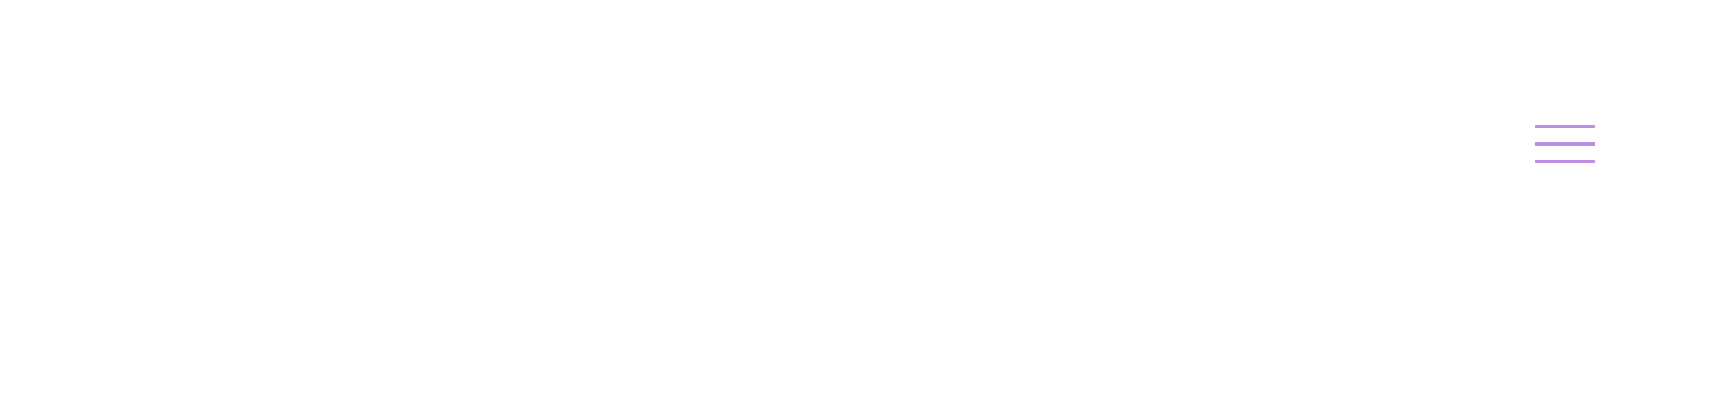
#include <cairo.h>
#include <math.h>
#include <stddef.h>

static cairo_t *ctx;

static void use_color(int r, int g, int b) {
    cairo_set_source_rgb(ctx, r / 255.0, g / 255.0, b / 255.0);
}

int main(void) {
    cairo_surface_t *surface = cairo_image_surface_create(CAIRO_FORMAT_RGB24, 1716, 416);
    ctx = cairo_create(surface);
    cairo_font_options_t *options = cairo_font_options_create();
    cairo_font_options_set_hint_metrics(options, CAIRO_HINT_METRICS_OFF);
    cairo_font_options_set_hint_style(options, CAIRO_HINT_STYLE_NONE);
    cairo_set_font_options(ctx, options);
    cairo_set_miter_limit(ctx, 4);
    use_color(255, 255, 255);
    cairo_paint(ctx);
    use_color(190, 143, 224);
    cairo_rectangle(ctx, 1535, 125, 60, 3);
    cairo_fill(ctx);
    cairo_rectangle(ctx, 1535, 142, 60, 4);
    cairo_fill(ctx);
    cairo_rectangle(ctx, 1535, 160, 60, 3);
    cairo_fill(ctx);
    cairo_surface_write_to_png(surface, "result.png");
    cairo_font_options_destroy(options);
    cairo_destroy(ctx);
    cairo_surface_destroy(surface);
    return 0;
}
